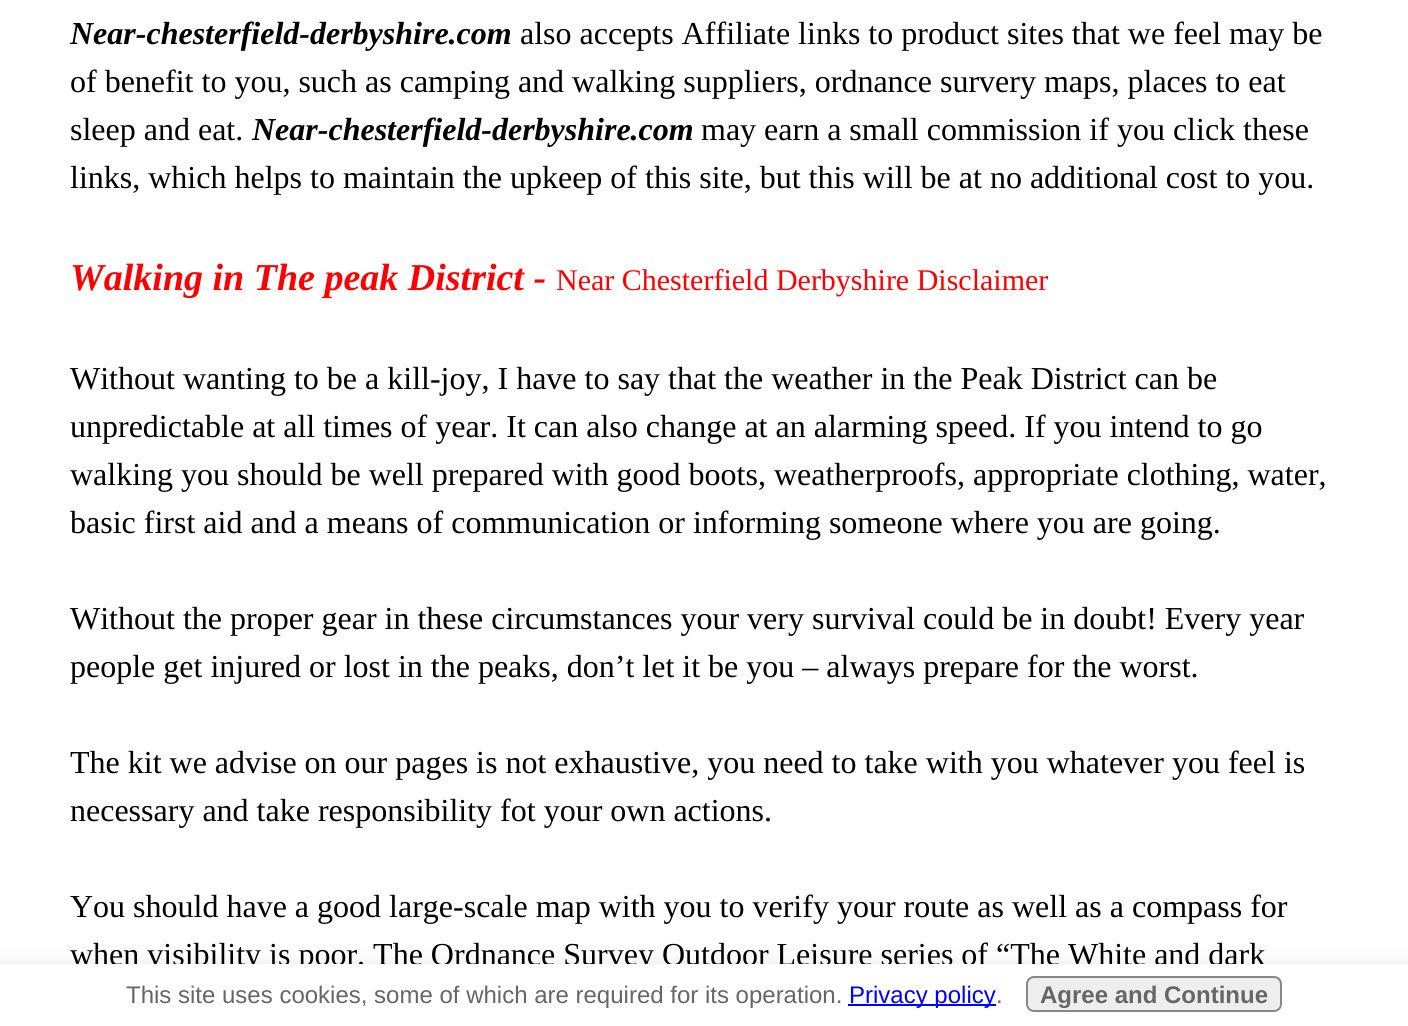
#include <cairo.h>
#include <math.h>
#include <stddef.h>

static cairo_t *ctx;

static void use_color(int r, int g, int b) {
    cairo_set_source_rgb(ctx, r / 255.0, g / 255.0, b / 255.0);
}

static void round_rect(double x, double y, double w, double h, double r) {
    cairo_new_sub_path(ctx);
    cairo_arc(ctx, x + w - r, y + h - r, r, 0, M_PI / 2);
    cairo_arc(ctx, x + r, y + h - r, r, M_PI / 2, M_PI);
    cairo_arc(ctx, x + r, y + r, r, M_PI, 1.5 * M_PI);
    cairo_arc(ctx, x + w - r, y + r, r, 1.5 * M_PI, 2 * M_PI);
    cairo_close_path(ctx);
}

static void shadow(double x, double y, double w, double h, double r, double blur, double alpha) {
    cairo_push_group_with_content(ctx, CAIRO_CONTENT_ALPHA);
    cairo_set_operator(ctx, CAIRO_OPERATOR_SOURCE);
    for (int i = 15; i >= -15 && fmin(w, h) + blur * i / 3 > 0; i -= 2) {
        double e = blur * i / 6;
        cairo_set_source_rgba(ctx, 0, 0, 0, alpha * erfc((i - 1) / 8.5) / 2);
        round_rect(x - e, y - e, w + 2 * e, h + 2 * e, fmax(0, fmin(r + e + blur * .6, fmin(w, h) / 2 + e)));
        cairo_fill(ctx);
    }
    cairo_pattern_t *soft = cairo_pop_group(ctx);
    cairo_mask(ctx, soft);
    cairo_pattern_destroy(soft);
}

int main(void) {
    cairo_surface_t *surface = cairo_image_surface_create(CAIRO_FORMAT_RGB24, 1408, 1026);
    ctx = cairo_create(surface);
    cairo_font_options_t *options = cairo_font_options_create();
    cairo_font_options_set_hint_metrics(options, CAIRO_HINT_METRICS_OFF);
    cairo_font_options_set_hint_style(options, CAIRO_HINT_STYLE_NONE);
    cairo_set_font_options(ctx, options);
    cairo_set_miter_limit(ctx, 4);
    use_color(255, 255, 255);
    cairo_paint(ctx);
    cairo_select_font_face(ctx, "Liberation Serif", CAIRO_FONT_SLANT_ITALIC, CAIRO_FONT_WEIGHT_BOLD);
    cairo_set_font_size(ctx, 32);
    use_color(0, 0, 0);
    cairo_move_to(ctx, 70, 44);
    cairo_show_text(ctx, "Near-chesterfield-derbyshire.com");
    cairo_select_font_face(ctx, "Liberation Serif", CAIRO_FONT_SLANT_NORMAL, CAIRO_FONT_WEIGHT_NORMAL);
    cairo_move_to(ctx, 520, 44);
    cairo_show_text(ctx, "also accepts Affiliate links to product sites that we feel may be");
    cairo_move_to(ctx, 70, 92);
    cairo_show_text(ctx, "of benefit to you, such as camping and walking suppliers, ordnance survery maps, places to eat");
    cairo_move_to(ctx, 70, 140);
    cairo_show_text(ctx, "sleep and eat.");
    cairo_select_font_face(ctx, "Liberation Serif", CAIRO_FONT_SLANT_ITALIC, CAIRO_FONT_WEIGHT_BOLD);
    cairo_move_to(ctx, 252, 140);
    cairo_show_text(ctx, "Near-chesterfield-derbyshire.com");
    cairo_select_font_face(ctx, "Liberation Serif", CAIRO_FONT_SLANT_NORMAL, CAIRO_FONT_WEIGHT_NORMAL);
    cairo_move_to(ctx, 701, 140);
    cairo_show_text(ctx, "may earn a small commission if you click these");
    cairo_move_to(ctx, 70, 188);
    cairo_show_text(ctx, "links, which helps to maintain the upkeep of this site, but this will be at no additional cost to you.");
    cairo_select_font_face(ctx, "Liberation Serif", CAIRO_FONT_SLANT_ITALIC, CAIRO_FONT_WEIGHT_BOLD);
    cairo_set_font_size(ctx, 38);
    use_color(250, 2, 2);
    cairo_move_to(ctx, 70, 290);
    cairo_show_text(ctx, "Walking in The peak District -");
    cairo_select_font_face(ctx, "Liberation Serif", CAIRO_FONT_SLANT_NORMAL, CAIRO_FONT_WEIGHT_NORMAL);
    cairo_set_font_size(ctx, 30);
    cairo_move_to(ctx, 556, 290);
    cairo_show_text(ctx, "Near Chesterfield Derbyshire Disclaimer");
    cairo_set_font_size(ctx, 32);
    use_color(0, 0, 0);
    cairo_move_to(ctx, 70, 389);
    cairo_show_text(ctx, "Without wanting to be a kill-joy, I have to say that the weather in the Peak District can be");
    cairo_move_to(ctx, 70, 437);
    cairo_show_text(ctx, "unpredictable at all times of year. It can also change at an alarming speed. If you intend to go");
    cairo_move_to(ctx, 70, 485);
    cairo_show_text(ctx, "walking you should be well prepared with good boots, weatherproofs, appropriate clothing, water,");
    cairo_move_to(ctx, 70, 533);
    cairo_show_text(ctx, "basic first aid and a means of communication or informing someone where you are going.");
    cairo_move_to(ctx, 70, 629);
    cairo_show_text(ctx, "Without the proper gear in these circumstances your very survival could be in doubt! Every year");
    cairo_move_to(ctx, 70, 677);
    cairo_show_text(ctx, "people get injured or lost in the peaks, don’t let it be you – always prepare for the worst.");
    cairo_move_to(ctx, 70, 773);
    cairo_show_text(ctx, "The kit we advise on our pages is not exhaustive, you need to take with you whatever you feel is");
    cairo_move_to(ctx, 70, 821);
    cairo_show_text(ctx, "necessary and take responsibility fot your own actions.");
    cairo_move_to(ctx, 70, 917);
    cairo_show_text(ctx, "You should have a good large-scale map with you to verify your route as well as a compass for");
    cairo_move_to(ctx, 70, 965);
    cairo_show_text(ctx, "when visibility is poor. The Ordnance Survey Outdoor Leisure series of “The White and dark");
    use_color(0, 0, 0);
    shadow(-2, 970, 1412, 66, 0, 10, 0.2);
    use_color(255, 255, 255);
    cairo_rectangle(ctx, 0, 964, 1408, 62);
    cairo_fill(ctx);
    cairo_select_font_face(ctx, "Liberation Sans", CAIRO_FONT_SLANT_NORMAL, CAIRO_FONT_WEIGHT_NORMAL);
    cairo_set_font_size(ctx, 24);
    use_color(102, 102, 102);
    cairo_move_to(ctx, 126, 1003);
    cairo_show_text(ctx, "This site uses cookies, some of which are required for its operation.");
    use_color(0, 0, 255);
    cairo_rectangle(ctx, 848, 1004, 148, 2);
    cairo_fill(ctx);
    cairo_move_to(ctx, 849, 1003);
    cairo_show_text(ctx, "Privacy policy");
    use_color(102, 102, 102);
    cairo_move_to(ctx, 996, 1003);
    cairo_show_text(ctx, ".");
    use_color(238, 238, 238);
    round_rect(1027, 977, 254, 34, 7);
    cairo_fill_preserve(ctx);
    use_color(136, 136, 136);
    cairo_stroke(ctx);
    cairo_select_font_face(ctx, "Liberation Sans", CAIRO_FONT_SLANT_NORMAL, CAIRO_FONT_WEIGHT_BOLD);
    use_color(102, 102, 102);
    cairo_move_to(ctx, 1040, 1003);
    cairo_show_text(ctx, "Agree and Continue");
    cairo_surface_write_to_png(surface, "result.png");
    cairo_font_options_destroy(options);
    cairo_destroy(ctx);
    cairo_surface_destroy(surface);
    return 0;
}
